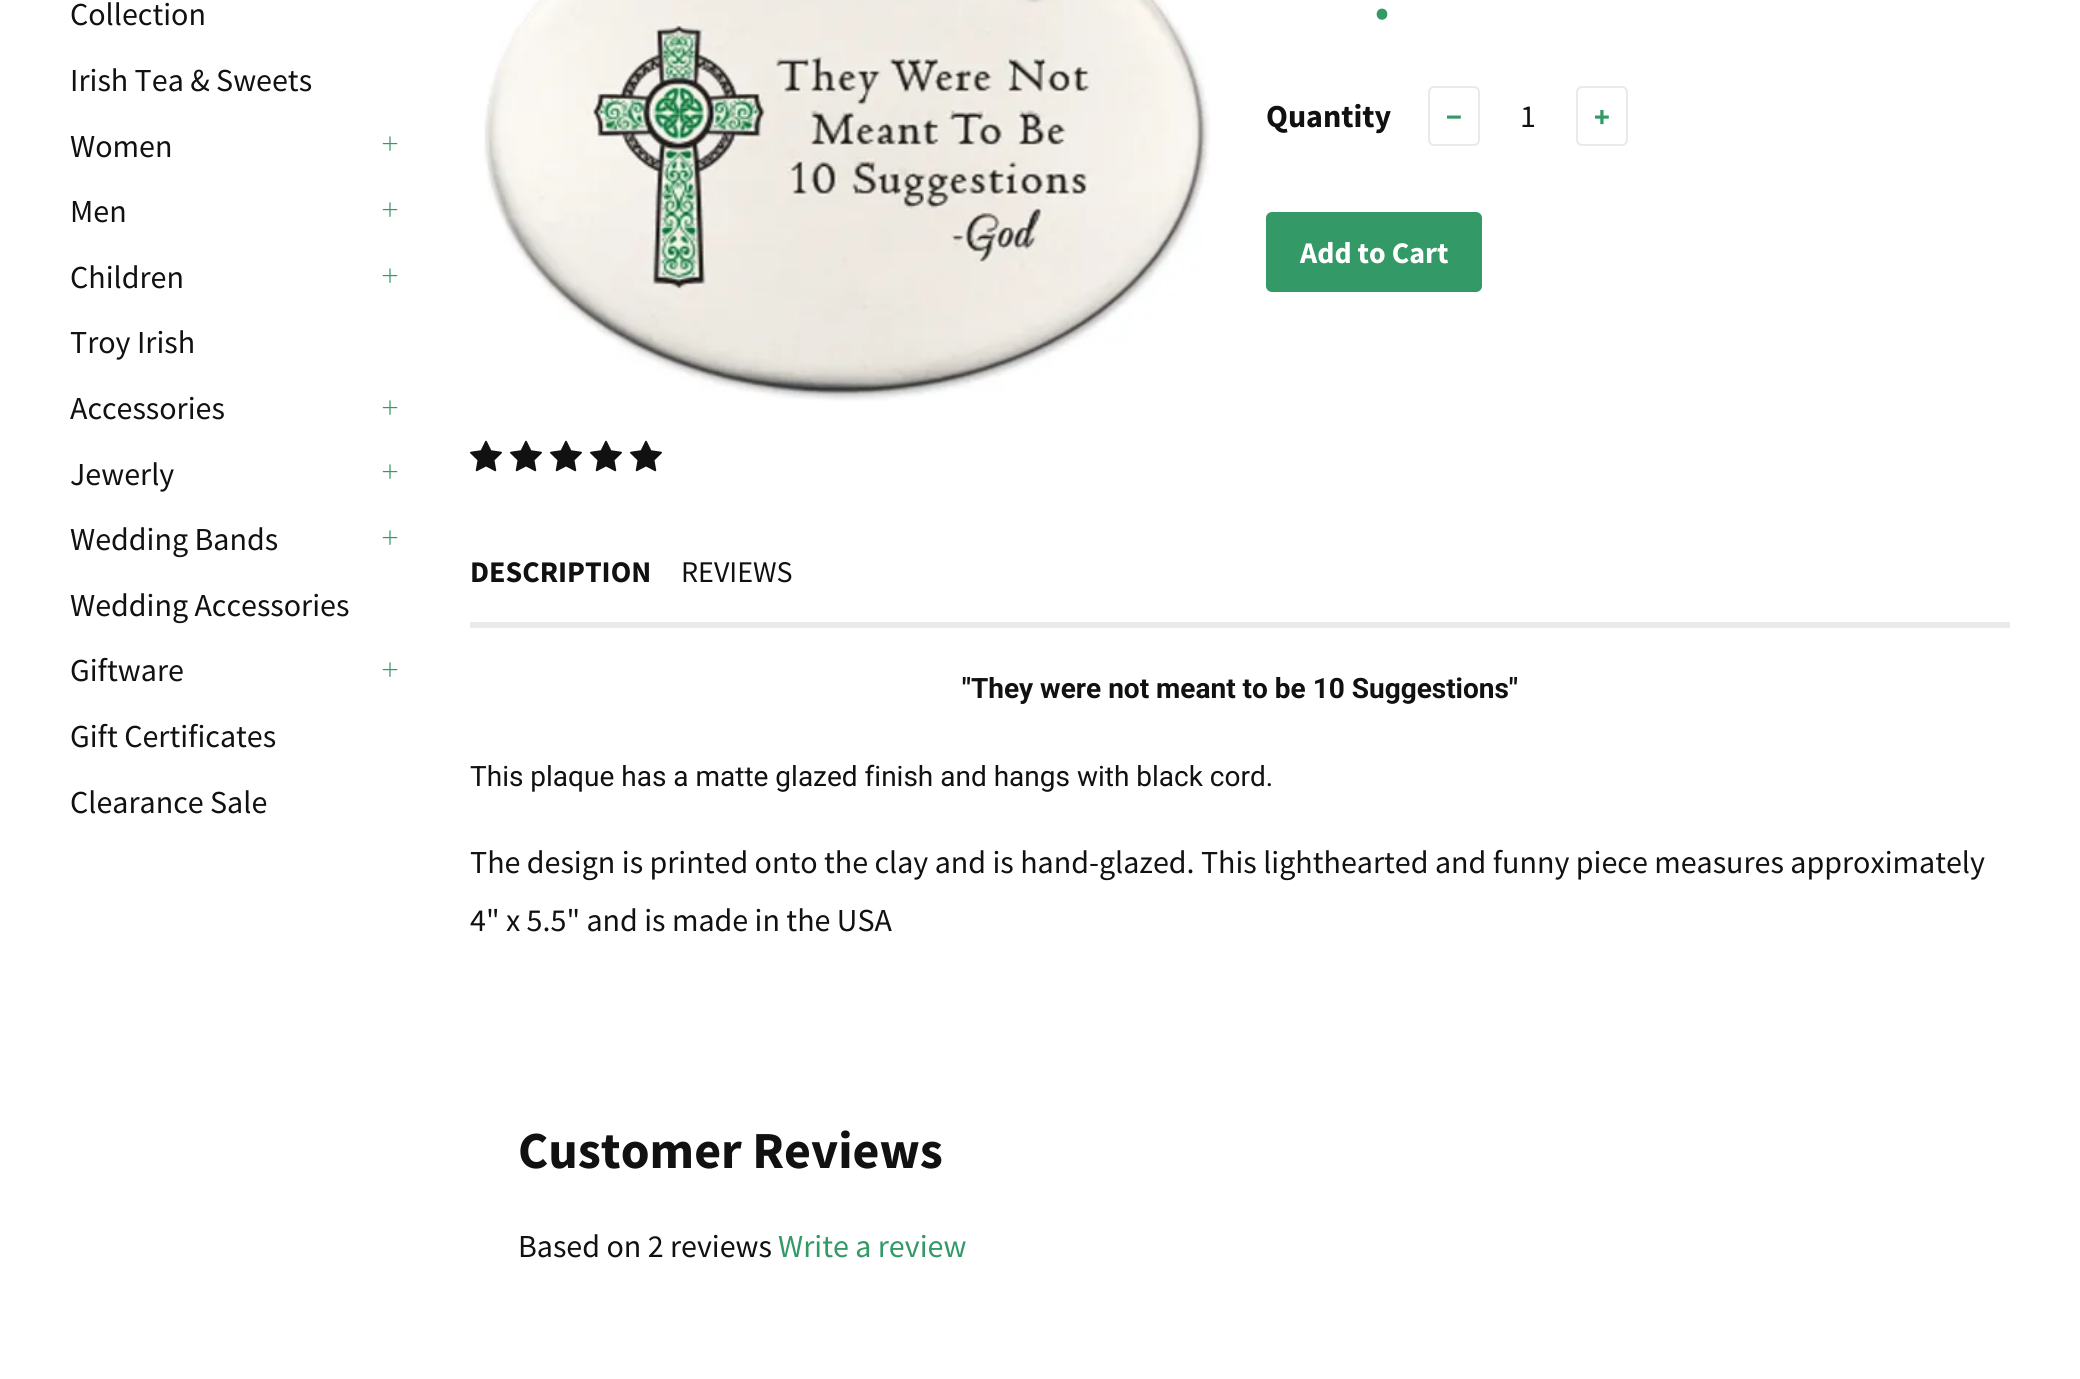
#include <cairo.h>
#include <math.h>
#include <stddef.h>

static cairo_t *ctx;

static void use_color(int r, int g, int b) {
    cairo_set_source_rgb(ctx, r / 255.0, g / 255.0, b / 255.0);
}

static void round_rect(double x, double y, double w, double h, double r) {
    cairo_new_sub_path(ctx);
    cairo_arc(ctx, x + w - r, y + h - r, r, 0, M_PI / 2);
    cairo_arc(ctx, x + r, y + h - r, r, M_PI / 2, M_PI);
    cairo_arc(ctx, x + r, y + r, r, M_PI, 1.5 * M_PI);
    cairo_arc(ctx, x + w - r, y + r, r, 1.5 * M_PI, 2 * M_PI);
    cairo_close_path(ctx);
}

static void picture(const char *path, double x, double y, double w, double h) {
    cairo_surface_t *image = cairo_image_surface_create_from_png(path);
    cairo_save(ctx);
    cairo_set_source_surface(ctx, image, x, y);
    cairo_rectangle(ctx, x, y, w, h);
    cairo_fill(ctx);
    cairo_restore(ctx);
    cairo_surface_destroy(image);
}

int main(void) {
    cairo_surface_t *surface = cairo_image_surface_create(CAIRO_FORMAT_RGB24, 2080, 1379);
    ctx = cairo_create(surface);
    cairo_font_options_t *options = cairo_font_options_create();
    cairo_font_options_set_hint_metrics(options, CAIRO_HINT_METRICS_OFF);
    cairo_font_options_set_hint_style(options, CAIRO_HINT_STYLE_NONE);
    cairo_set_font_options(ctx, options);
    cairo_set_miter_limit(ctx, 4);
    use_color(255, 255, 255);
    cairo_paint(ctx);
    cairo_select_font_face(ctx, "Source Sans Pro", CAIRO_FONT_SLANT_NORMAL, CAIRO_FONT_WEIGHT_NORMAL);
    cairo_set_font_size(ctx, 32);
    use_color(17, 17, 17);
    cairo_move_to(ctx, 70, 25);
    cairo_show_text(ctx, "Collection");
    cairo_move_to(ctx, 70, 91);
    cairo_show_text(ctx, "Irish Tea & Sweets");
    cairo_move_to(ctx, 70, 157);
    cairo_show_text(ctx, "Women");
    picture("img1.png", 382, 136, 16, 15);
    cairo_move_to(ctx, 70, 222);
    cairo_show_text(ctx, "Men");
    picture("img1.png", 382, 202, 16, 15);
    cairo_move_to(ctx, 70, 288);
    cairo_show_text(ctx, "Children");
    picture("img1.png", 382, 268, 16, 15);
    cairo_move_to(ctx, 70, 353);
    cairo_show_text(ctx, "Troy Irish");
    cairo_move_to(ctx, 70, 419);
    cairo_show_text(ctx, "Accessories");
    picture("img1.png", 382, 400, 16, 15);
    cairo_move_to(ctx, 70, 485);
    cairo_show_text(ctx, "Jewerly");
    picture("img1.png", 382, 464, 16, 15);
    cairo_move_to(ctx, 70, 550);
    cairo_show_text(ctx, "Wedding Bands");
    picture("img1.png", 382, 530, 16, 15);
    cairo_move_to(ctx, 70, 616);
    cairo_show_text(ctx, "Wedding Accessories");
    cairo_move_to(ctx, 70, 681);
    cairo_show_text(ctx, "Giftware");
    picture("img1.png", 382, 662, 16, 15);
    cairo_move_to(ctx, 70, 747);
    cairo_show_text(ctx, "Gift Certificates");
    cairo_move_to(ctx, 70, 813);
    cairo_show_text(ctx, "Clearance Sale");
    picture("img2.png", 484, 0, 726, 402);
    picture("img3.png", 470, 440, 32, 32);
    picture("img3.png", 510, 440, 32, 32);
    picture("img3.png", 550, 440, 32, 32);
    picture("img3.png", 590, 440, 32, 32);
    picture("img3.png", 630, 440, 32, 32);
    cairo_select_font_face(ctx, "Source Sans Pro", CAIRO_FONT_SLANT_NORMAL, CAIRO_FONT_WEIGHT_BOLD);
    cairo_set_font_size(ctx, 60);
    use_color(51, 153, 102);
    cairo_move_to(ctx, 1373, 19);
    cairo_show_text(ctx, ".");
    cairo_set_font_size(ctx, 32);
    use_color(17, 17, 17);
    cairo_move_to(ctx, 1266, 127);
    cairo_show_text(ctx, "Quantity");
    round_rect(1429, 87, 50, 58, 5);
    use_color(234, 234, 234);
    cairo_stroke(ctx);
    cairo_set_font_size(ctx, 30);
    use_color(51, 153, 102);
    cairo_move_to(ctx, 1446, 127);
    cairo_show_text(ctx, "−");
    cairo_select_font_face(ctx, "Source Sans Pro", CAIRO_FONT_SLANT_NORMAL, CAIRO_FONT_WEIGHT_NORMAL);
    cairo_set_font_size(ctx, 32);
    use_color(17, 17, 17);
    cairo_move_to(ctx, 1520, 127);
    cairo_show_text(ctx, "1");
    round_rect(1577, 87, 50, 58, 5);
    use_color(234, 234, 234);
    cairo_stroke(ctx);
    cairo_select_font_face(ctx, "Source Sans Pro", CAIRO_FONT_SLANT_NORMAL, CAIRO_FONT_WEIGHT_BOLD);
    cairo_set_font_size(ctx, 30);
    use_color(51, 153, 102);
    cairo_move_to(ctx, 1594, 127);
    cairo_show_text(ctx, "+");
    round_rect(1266, 212, 216, 80, 6);
    cairo_fill(ctx);
    use_color(255, 255, 255);
    cairo_move_to(ctx, 1300, 263);
    cairo_show_text(ctx, "Add to Cart");
    use_color(234, 234, 234);
    cairo_rectangle(ctx, 470, 622, 1540, 6);
    cairo_fill(ctx);
    use_color(17, 17, 17);
    cairo_move_to(ctx, 470, 582);
    cairo_show_text(ctx, "DESCRIPTION");
    cairo_select_font_face(ctx, "Source Sans Pro", CAIRO_FONT_SLANT_NORMAL, CAIRO_FONT_WEIGHT_NORMAL);
    cairo_move_to(ctx, 681, 582);
    cairo_show_text(ctx, "REVIEWS");
    cairo_select_font_face(ctx, "Roboto", CAIRO_FONT_SLANT_NORMAL, CAIRO_FONT_WEIGHT_BOLD);
    cairo_set_font_size(ctx, 28);
    cairo_move_to(ctx, 962, 698);
    cairo_show_text(ctx, "\"They were not meant to be 10 Suggestions\"");
    cairo_select_font_face(ctx, "Roboto", CAIRO_FONT_SLANT_NORMAL, CAIRO_FONT_WEIGHT_NORMAL);
    cairo_move_to(ctx, 470, 786);
    cairo_show_text(ctx, "This plaque has a matte glazed finish and hangs with black cord.");
    cairo_select_font_face(ctx, "Source Sans Pro", CAIRO_FONT_SLANT_NORMAL, CAIRO_FONT_WEIGHT_NORMAL);
    cairo_set_font_size(ctx, 32);
    cairo_move_to(ctx, 470, 873);
    cairo_show_text(ctx, "The design is printed onto the clay and is hand-glazed. This lighthearted and funny piece measures approximately");
    cairo_move_to(ctx, 470, 931);
    cairo_show_text(ctx, "4\" x 5.5\" and is made in the USA");
    cairo_select_font_face(ctx, "Source Sans Pro", CAIRO_FONT_SLANT_NORMAL, CAIRO_FONT_WEIGHT_BOLD);
    cairo_set_font_size(ctx, 52);
    cairo_move_to(ctx, 518, 1168);
    cairo_show_text(ctx, "Customer Reviews");
    cairo_select_font_face(ctx, "Source Sans Pro", CAIRO_FONT_SLANT_NORMAL, CAIRO_FONT_WEIGHT_NORMAL);
    cairo_set_font_size(ctx, 32);
    cairo_move_to(ctx, 518, 1257);
    cairo_show_text(ctx, "Based on 2 reviews");
    use_color(51, 153, 102);
    cairo_move_to(ctx, 778, 1257);
    cairo_show_text(ctx, "Write a review");
    cairo_surface_write_to_png(surface, "result.png");
    cairo_font_options_destroy(options);
    cairo_destroy(ctx);
    cairo_surface_destroy(surface);
    return 0;
}
